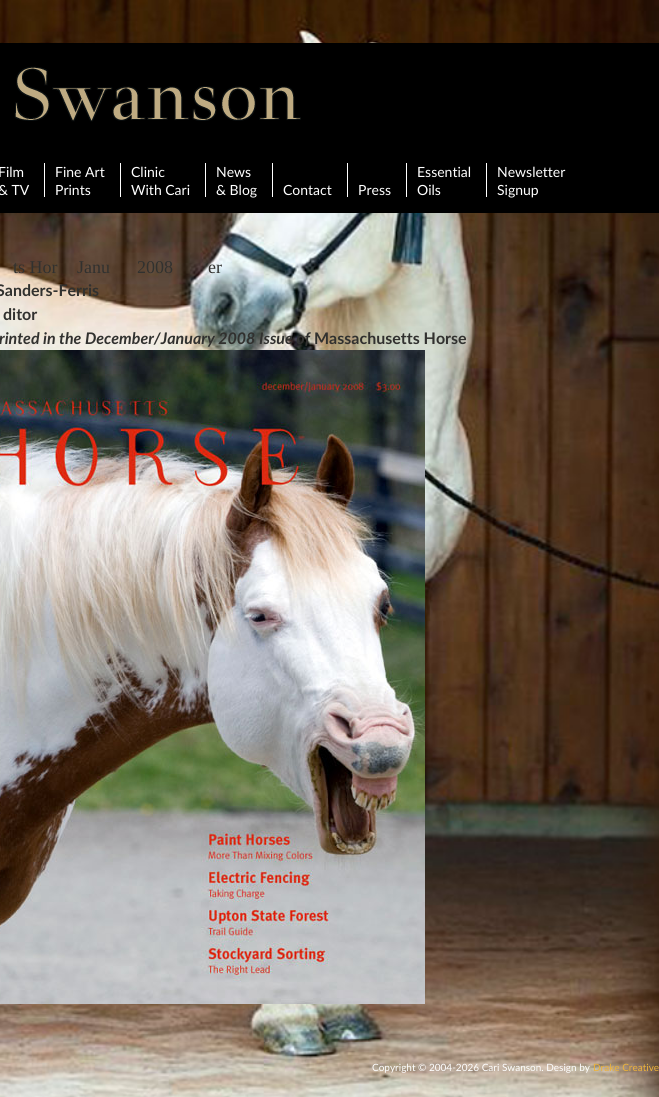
#include <cairo.h>
#include <math.h>
#include <stddef.h>

static cairo_t *ctx;

static void use_color(int r, int g, int b) {
    cairo_set_source_rgb(ctx, r / 255.0, g / 255.0, b / 255.0);
}

static void picture(const char *path, double x, double y, double w, double h) {
    cairo_surface_t *image = cairo_image_surface_create_from_png(path);
    cairo_save(ctx);
    cairo_set_source_surface(ctx, image, x, y);
    cairo_rectangle(ctx, x, y, w, h);
    cairo_fill(ctx);
    cairo_restore(ctx);
    cairo_surface_destroy(image);
}

int main(void) {
    cairo_surface_t *surface = cairo_image_surface_create(CAIRO_FORMAT_RGB24, 659, 1097);
    ctx = cairo_create(surface);
    cairo_font_options_t *options = cairo_font_options_create();
    cairo_font_options_set_hint_metrics(options, CAIRO_HINT_METRICS_OFF);
    cairo_font_options_set_hint_style(options, CAIRO_HINT_STYLE_NONE);
    cairo_set_font_options(ctx, options);
    cairo_set_miter_limit(ctx, 4);
    use_color(255, 255, 255);
    cairo_paint(ctx);
    picture("img1.png", 0, 0, 659, 1097);
    use_color(0, 0, 0);
    cairo_rectangle(ctx, 0, 43, 659, 170);
    cairo_fill(ctx);
    picture("img2.png", 14, 66, 287, 56);
    cairo_select_font_face(ctx, "Lato", CAIRO_FONT_SLANT_NORMAL, CAIRO_FONT_WEIGHT_NORMAL);
    cairo_set_font_size(ctx, 14);
    use_color(255, 255, 255);
    cairo_move_to(ctx, -2, 177);
    cairo_show_text(ctx, "Film");
    cairo_move_to(ctx, -2, 195);
    cairo_show_text(ctx, "& TV");
    cairo_rectangle(ctx, 44, 163, 1, 34);
    cairo_fill(ctx);
    cairo_move_to(ctx, 55, 177);
    cairo_show_text(ctx, "Fine Art");
    cairo_move_to(ctx, 55, 195);
    cairo_show_text(ctx, "Prints");
    cairo_rectangle(ctx, 120, 163, 1, 34);
    cairo_fill(ctx);
    cairo_move_to(ctx, 131, 177);
    cairo_show_text(ctx, "Clinic");
    cairo_move_to(ctx, 131, 195);
    cairo_show_text(ctx, "With Cari");
    cairo_rectangle(ctx, 205, 163, 1, 34);
    cairo_fill(ctx);
    cairo_move_to(ctx, 216, 177);
    cairo_show_text(ctx, "News");
    cairo_move_to(ctx, 216, 195);
    cairo_show_text(ctx, "& Blog");
    cairo_rectangle(ctx, 272, 163, 1, 34);
    cairo_fill(ctx);
    cairo_move_to(ctx, 283, 195);
    cairo_show_text(ctx, "Contact");
    cairo_rectangle(ctx, 347, 163, 1, 34);
    cairo_fill(ctx);
    cairo_move_to(ctx, 358, 195);
    cairo_show_text(ctx, "Press");
    cairo_rectangle(ctx, 406, 163, 1, 34);
    cairo_fill(ctx);
    cairo_move_to(ctx, 417, 177);
    cairo_show_text(ctx, "Essential");
    cairo_move_to(ctx, 417, 195);
    cairo_show_text(ctx, "Oils");
    cairo_rectangle(ctx, 486, 163, 1, 34);
    cairo_fill(ctx);
    cairo_move_to(ctx, 497, 177);
    cairo_show_text(ctx, "Newsletter");
    cairo_move_to(ctx, 497, 195);
    cairo_show_text(ctx, "Signup");
    cairo_select_font_face(ctx, "Liberation Serif", CAIRO_FONT_SLANT_NORMAL, CAIRO_FONT_WEIGHT_NORMAL);
    cairo_set_font_size(ctx, 18);
    use_color(49, 49, 47);
    cairo_move_to(ctx, 13, 273);
    cairo_show_text(ctx, "ts Hor");
    cairo_move_to(ctx, 77, 273);
    cairo_show_text(ctx, "Janu");
    cairo_move_to(ctx, 137, 273);
    cairo_show_text(ctx, "2008");
    cairo_move_to(ctx, 208, 273);
    cairo_show_text(ctx, "er");
    cairo_select_font_face(ctx, "Lato", CAIRO_FONT_SLANT_NORMAL, CAIRO_FONT_WEIGHT_BOLD);
    cairo_set_font_size(ctx, 16);
    cairo_move_to(ctx, -4, 296);
    cairo_show_text(ctx, "Sanders-Ferris");
    cairo_move_to(ctx, 3, 320);
    cairo_show_text(ctx, "ditor");
    cairo_select_font_face(ctx, "Lato", CAIRO_FONT_SLANT_ITALIC, CAIRO_FONT_WEIGHT_BOLD);
    cairo_move_to(ctx, -1, 344);
    cairo_show_text(ctx, "rinted in the December/January 2008 Issue of");
    cairo_select_font_face(ctx, "Lato", CAIRO_FONT_SLANT_NORMAL, CAIRO_FONT_WEIGHT_BOLD);
    cairo_move_to(ctx, 314, 344);
    cairo_show_text(ctx, "Massachusetts Horse");
    picture("img3.png", 0, 350, 425, 654);
    cairo_select_font_face(ctx, "Lato", CAIRO_FONT_SLANT_NORMAL, CAIRO_FONT_WEIGHT_NORMAL);
    cairo_set_font_size(ctx, 10);
    use_color(255, 255, 255);
    cairo_move_to(ctx, 372, 1071);
    cairo_show_text(ctx, "Copyright © 2004-2026 Cari Swanson. Design by");
    use_color(236, 178, 58);
    cairo_move_to(ctx, 593, 1071);
    cairo_show_text(ctx, "Drake Creative");
    cairo_surface_write_to_png(surface, "result.png");
    cairo_font_options_destroy(options);
    cairo_destroy(ctx);
    cairo_surface_destroy(surface);
    return 0;
}
